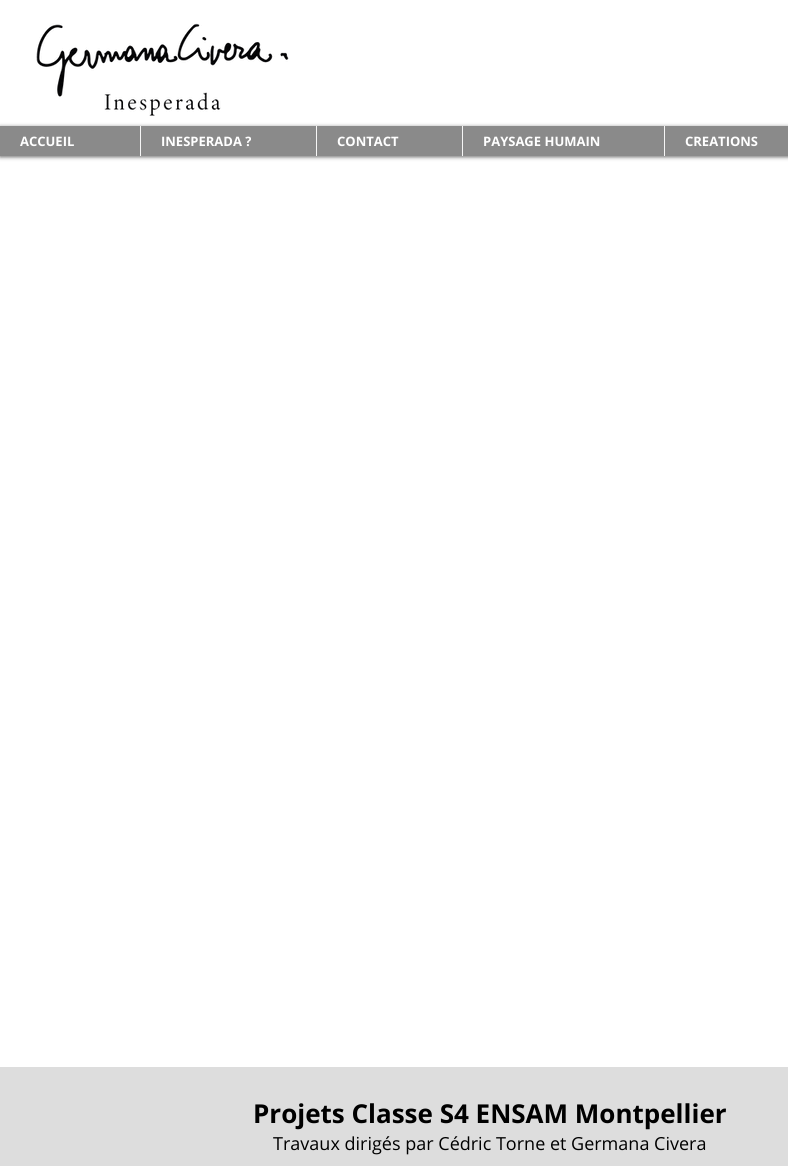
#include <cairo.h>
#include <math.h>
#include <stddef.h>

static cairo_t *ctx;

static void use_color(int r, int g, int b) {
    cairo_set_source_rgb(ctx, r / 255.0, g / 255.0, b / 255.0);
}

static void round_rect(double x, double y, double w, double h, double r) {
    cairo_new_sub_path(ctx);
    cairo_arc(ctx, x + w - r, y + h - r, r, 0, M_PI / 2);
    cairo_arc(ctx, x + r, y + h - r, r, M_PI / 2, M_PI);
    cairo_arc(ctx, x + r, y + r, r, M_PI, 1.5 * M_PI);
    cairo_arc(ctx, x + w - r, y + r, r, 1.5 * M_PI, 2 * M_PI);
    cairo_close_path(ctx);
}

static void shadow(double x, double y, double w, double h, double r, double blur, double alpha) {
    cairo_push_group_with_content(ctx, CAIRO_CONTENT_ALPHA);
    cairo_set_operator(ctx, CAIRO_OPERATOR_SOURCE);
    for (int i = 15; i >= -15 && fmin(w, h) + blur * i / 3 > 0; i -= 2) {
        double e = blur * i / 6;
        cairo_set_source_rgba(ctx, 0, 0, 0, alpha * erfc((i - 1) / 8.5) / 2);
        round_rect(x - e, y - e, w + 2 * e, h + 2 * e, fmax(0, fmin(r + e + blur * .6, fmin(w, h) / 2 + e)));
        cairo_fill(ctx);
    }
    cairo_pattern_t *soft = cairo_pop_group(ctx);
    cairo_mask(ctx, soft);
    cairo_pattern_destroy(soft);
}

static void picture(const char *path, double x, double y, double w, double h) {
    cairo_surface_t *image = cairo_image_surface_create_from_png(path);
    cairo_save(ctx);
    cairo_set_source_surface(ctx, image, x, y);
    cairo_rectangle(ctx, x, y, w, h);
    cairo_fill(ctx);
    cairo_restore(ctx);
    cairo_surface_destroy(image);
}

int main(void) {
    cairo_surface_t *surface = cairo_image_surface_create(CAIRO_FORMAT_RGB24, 788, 1166);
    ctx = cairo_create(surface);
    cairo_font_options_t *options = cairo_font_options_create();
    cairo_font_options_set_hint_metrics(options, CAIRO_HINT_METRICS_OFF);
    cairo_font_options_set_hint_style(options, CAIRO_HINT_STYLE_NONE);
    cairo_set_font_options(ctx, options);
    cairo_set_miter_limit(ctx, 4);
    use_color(255, 255, 255);
    cairo_paint(ctx);
    picture("img1.png", 36, 23, 253, 93);
    use_color(0, 0, 0);
    shadow(0, 127, 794, 30, 0, 2, 0.6);
    use_color(138, 138, 138);
    cairo_rectangle(ctx, 0, 126, 788, 30);
    cairo_fill(ctx);
    cairo_select_font_face(ctx, "Open Sans", CAIRO_FONT_SLANT_NORMAL, CAIRO_FONT_WEIGHT_BOLD);
    cairo_set_font_size(ctx, 13);
    use_color(255, 255, 255);
    cairo_move_to(ctx, 20, 146);
    cairo_show_text(ctx, "ACCUEIL");
    use_color(246, 246, 246);
    cairo_rectangle(ctx, 140, 126, 1, 30);
    cairo_fill(ctx);
    use_color(255, 255, 255);
    cairo_move_to(ctx, 161, 146);
    cairo_show_text(ctx, "INESPERADA ?");
    use_color(246, 246, 246);
    cairo_rectangle(ctx, 316, 126, 1, 30);
    cairo_fill(ctx);
    use_color(255, 255, 255);
    cairo_move_to(ctx, 337, 146);
    cairo_show_text(ctx, "CONTACT");
    use_color(246, 246, 246);
    cairo_rectangle(ctx, 462, 126, 1, 30);
    cairo_fill(ctx);
    use_color(255, 255, 255);
    cairo_move_to(ctx, 483, 146);
    cairo_show_text(ctx, "PAYSAGE HUMAIN");
    use_color(246, 246, 246);
    cairo_rectangle(ctx, 664, 126, 1, 30);
    cairo_fill(ctx);
    use_color(255, 255, 255);
    cairo_move_to(ctx, 685, 146);
    cairo_show_text(ctx, "CREATIONS");
    use_color(221, 221, 221);
    cairo_rectangle(ctx, 0, 1067, 788, 99);
    cairo_fill(ctx);
    cairo_set_font_size(ctx, 26);
    use_color(0, 0, 0);
    cairo_move_to(ctx, 253, 1123);
    cairo_show_text(ctx, "Projets Classe S4 ENSAM Montpellier");
    cairo_select_font_face(ctx, "Open Sans", CAIRO_FONT_SLANT_NORMAL, CAIRO_FONT_WEIGHT_NORMAL);
    cairo_set_font_size(ctx, 18);
    cairo_move_to(ctx, 273, 1150);
    cairo_show_text(ctx, "Travaux dirigés par Cédric Torne et Germana Civera");
    cairo_surface_write_to_png(surface, "result.png");
    cairo_font_options_destroy(options);
    cairo_destroy(ctx);
    cairo_surface_destroy(surface);
    return 0;
}
